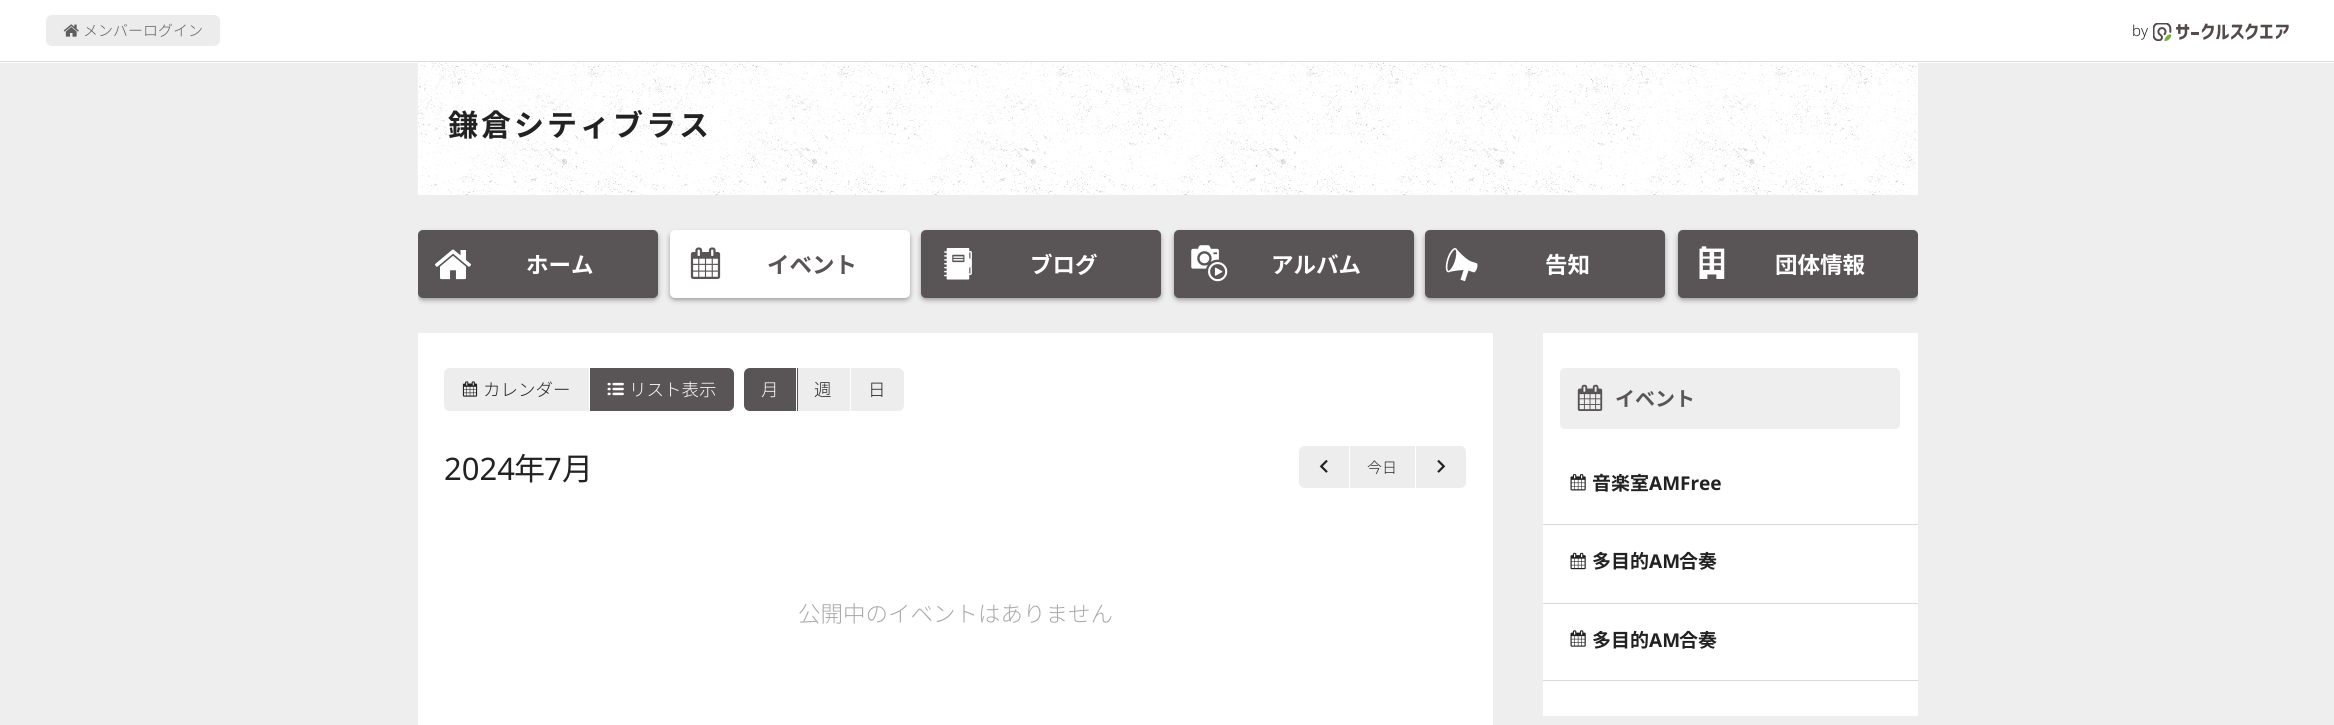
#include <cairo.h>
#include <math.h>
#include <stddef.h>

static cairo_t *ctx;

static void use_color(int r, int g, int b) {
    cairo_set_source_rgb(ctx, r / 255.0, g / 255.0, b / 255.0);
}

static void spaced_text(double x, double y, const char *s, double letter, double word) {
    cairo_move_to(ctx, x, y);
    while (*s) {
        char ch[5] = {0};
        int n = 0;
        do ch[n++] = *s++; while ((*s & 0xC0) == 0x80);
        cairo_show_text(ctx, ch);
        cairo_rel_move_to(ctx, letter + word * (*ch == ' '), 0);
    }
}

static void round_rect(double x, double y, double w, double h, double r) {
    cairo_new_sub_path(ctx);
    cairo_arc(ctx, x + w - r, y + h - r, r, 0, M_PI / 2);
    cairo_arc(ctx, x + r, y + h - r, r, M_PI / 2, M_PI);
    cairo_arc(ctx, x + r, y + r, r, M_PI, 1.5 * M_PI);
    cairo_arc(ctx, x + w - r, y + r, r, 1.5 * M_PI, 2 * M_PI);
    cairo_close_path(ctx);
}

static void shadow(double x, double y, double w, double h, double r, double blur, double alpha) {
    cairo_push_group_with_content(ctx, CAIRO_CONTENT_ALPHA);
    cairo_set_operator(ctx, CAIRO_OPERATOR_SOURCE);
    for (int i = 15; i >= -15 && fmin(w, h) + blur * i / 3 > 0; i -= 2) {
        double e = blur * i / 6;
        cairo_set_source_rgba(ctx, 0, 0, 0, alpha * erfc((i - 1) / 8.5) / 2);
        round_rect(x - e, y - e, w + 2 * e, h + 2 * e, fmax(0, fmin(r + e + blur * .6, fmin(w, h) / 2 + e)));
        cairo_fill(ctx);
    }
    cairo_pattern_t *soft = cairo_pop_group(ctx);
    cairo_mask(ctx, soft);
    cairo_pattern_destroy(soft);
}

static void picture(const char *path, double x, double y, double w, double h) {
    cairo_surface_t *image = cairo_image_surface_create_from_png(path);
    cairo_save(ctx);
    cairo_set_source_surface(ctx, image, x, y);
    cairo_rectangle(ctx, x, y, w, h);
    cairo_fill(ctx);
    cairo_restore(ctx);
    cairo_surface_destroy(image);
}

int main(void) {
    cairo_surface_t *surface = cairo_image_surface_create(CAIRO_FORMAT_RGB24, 2334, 725);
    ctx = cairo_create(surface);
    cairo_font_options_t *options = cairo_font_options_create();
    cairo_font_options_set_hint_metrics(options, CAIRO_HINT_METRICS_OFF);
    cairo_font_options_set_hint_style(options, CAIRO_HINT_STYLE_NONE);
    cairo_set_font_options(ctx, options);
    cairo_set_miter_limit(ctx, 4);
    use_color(238, 238, 238);
    cairo_paint(ctx);
    use_color(255, 255, 255);
    cairo_rectangle(ctx, 0, 0, 2334, 63);
    cairo_fill(ctx);
    use_color(221, 221, 221);
    cairo_rectangle(ctx, 0, 61, 2334, 1);
    cairo_fill(ctx);
    use_color(236, 236, 236);
    round_rect(46, 15, 174, 31, 6);
    cairo_fill(ctx);
    picture("img1.png", 63, 24, 16, 13);
    cairo_select_font_face(ctx, "Noto Sans CJK JP Light", CAIRO_FONT_SLANT_NORMAL, CAIRO_FONT_WEIGHT_NORMAL);
    cairo_set_font_size(ctx, 15);
    use_color(94, 94, 94);
    cairo_move_to(ctx, 83, 36);
    cairo_show_text(ctx, "メンバーログイン");
    cairo_select_font_face(ctx, "Noto Sans Light", CAIRO_FONT_SLANT_NORMAL, CAIRO_FONT_WEIGHT_NORMAL);
    use_color(34, 34, 34);
    cairo_move_to(ctx, 2132, 36);
    cairo_show_text(ctx, "by");
    picture("img2.png", 2153, 23, 136, 18);
    use_color(255, 255, 255);
    cairo_rectangle(ctx, 1917, 63, 1, 132);
    cairo_fill(ctx);
    picture("img3.png", 417, 63, 1501, 132);
    cairo_select_font_face(ctx, "Noto Sans CJK JP", CAIRO_FONT_SLANT_NORMAL, CAIRO_FONT_WEIGHT_BOLD);
    cairo_set_font_size(ctx, 30);
    use_color(34, 34, 34);
    spaced_text(448, 136, "鎌倉シティブラス", 3, 0);
    cairo_save(ctx);
    cairo_rectangle(ctx, 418, 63, 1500, 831);
    cairo_clip(ctx);
    use_color(0, 0, 0);
    shadow(418, 233, 240, 67, 5, 2.5, 0.35);
    cairo_restore(ctx);
    use_color(89, 84, 85);
    round_rect(418, 230, 240, 68, 5);
    cairo_fill(ctx);
    picture("img4.png", 435, 249, 36, 31);
    cairo_set_font_size(ctx, 22.5);
    use_color(255, 255, 255);
    cairo_move_to(ctx, 526, 273);
    cairo_show_text(ctx, "ホーム");
    use_color(0, 0, 0);
    shadow(670, 233, 240, 67, 5, 2.5, 0.35);
    use_color(255, 255, 255);
    round_rect(670, 230, 240, 68, 5);
    cairo_fill(ctx);
    picture("img5.png", 690, 247, 31, 32);
    use_color(89, 84, 85);
    cairo_move_to(ctx, 767, 273);
    cairo_show_text(ctx, "イベント");
    use_color(0, 0, 0);
    shadow(921, 233, 240, 67, 5, 2.5, 0.35);
    use_color(89, 84, 85);
    round_rect(921, 230, 240, 68, 5);
    cairo_fill(ctx);
    picture("img6.png", 944, 248, 28, 32);
    use_color(255, 255, 255);
    cairo_move_to(ctx, 1030, 273);
    cairo_show_text(ctx, "ブログ");
    use_color(0, 0, 0);
    shadow(1174, 233, 240, 67, 5, 2.5, 0.35);
    use_color(89, 84, 85);
    round_rect(1174, 230, 240, 68, 5);
    cairo_fill(ctx);
    picture("img7.png", 1191, 245, 37, 37);
    use_color(255, 255, 255);
    cairo_move_to(ctx, 1271, 273);
    cairo_show_text(ctx, "アルバム");
    use_color(0, 0, 0);
    shadow(1425, 233, 240, 67, 5, 2.5, 0.35);
    use_color(89, 84, 85);
    round_rect(1425, 230, 240, 68, 5);
    cairo_fill(ctx);
    picture("img8.png", 1445, 248, 33, 34);
    use_color(255, 255, 255);
    cairo_move_to(ctx, 1545, 273);
    cairo_show_text(ctx, "告知");
    cairo_save(ctx);
    cairo_rectangle(ctx, 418, 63, 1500, 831);
    cairo_clip(ctx);
    use_color(0, 0, 0);
    shadow(1678, 233, 240, 67, 5, 2.5, 0.35);
    cairo_restore(ctx);
    use_color(89, 84, 85);
    round_rect(1678, 230, 240, 68, 5);
    cairo_fill(ctx);
    picture("img9.png", 1699, 246, 26, 33);
    use_color(255, 255, 255);
    cairo_move_to(ctx, 1775, 273);
    cairo_show_text(ctx, "団体情報");
    cairo_rectangle(ctx, 418, 333, 1075, 392);
    cairo_fill(ctx);
    use_color(238, 237, 237);
    cairo_new_path(ctx);
    cairo_move_to(ctx, 450, 368);
    cairo_line_to(ctx, 590, 368);
    cairo_line_to(ctx, 590, 411);
    cairo_line_to(ctx, 450, 411);
    cairo_curve_to(ctx, 446.5, 411, 444, 408.5, 444, 405);
    cairo_line_to(ctx, 444, 374);
    cairo_curve_to(ctx, 444, 370.5, 446.5, 368, 450, 368);
    cairo_close_path(ctx);
    cairo_fill(ctx);
    use_color(255, 255, 255);
    cairo_rectangle(ctx, 589, 368, 1, 43);
    cairo_fill(ctx);
    picture("img10.png", 462, 381, 16, 16);
    cairo_select_font_face(ctx, "Noto Sans CJK JP Light", CAIRO_FONT_SLANT_NORMAL, CAIRO_FONT_WEIGHT_NORMAL);
    cairo_set_font_size(ctx, 17.5);
    use_color(34, 34, 34);
    cairo_move_to(ctx, 483, 396);
    cairo_show_text(ctx, "カレンダー");
    use_color(89, 84, 85);
    cairo_new_path(ctx);
    cairo_move_to(ctx, 590, 368);
    cairo_line_to(ctx, 728, 368);
    cairo_curve_to(ctx, 731.5, 368, 734, 370.5, 734, 374);
    cairo_line_to(ctx, 734, 405);
    cairo_curve_to(ctx, 734, 408.5, 731.5, 411, 728, 411);
    cairo_line_to(ctx, 590, 411);
    cairo_close_path(ctx);
    cairo_fill(ctx);
    picture("img11.png", 607, 382, 17, 14);
    use_color(255, 255, 255);
    cairo_move_to(ctx, 629, 396);
    cairo_show_text(ctx, "リスト表示");
    use_color(89, 84, 85);
    cairo_new_path(ctx);
    cairo_move_to(ctx, 750, 368);
    cairo_line_to(ctx, 798, 368);
    cairo_line_to(ctx, 798, 411);
    cairo_line_to(ctx, 750, 411);
    cairo_curve_to(ctx, 746.5, 411, 744, 408.5, 744, 405);
    cairo_line_to(ctx, 744, 374);
    cairo_curve_to(ctx, 744, 370.5, 746.5, 368, 750, 368);
    cairo_close_path(ctx);
    cairo_fill(ctx);
    use_color(255, 255, 255);
    cairo_rectangle(ctx, 796, 368, 1, 43);
    cairo_fill(ctx);
    cairo_move_to(ctx, 761, 396);
    cairo_show_text(ctx, "月");
    use_color(238, 237, 237);
    cairo_rectangle(ctx, 798, 368, 52, 43);
    cairo_fill(ctx);
    use_color(34, 34, 34);
    cairo_move_to(ctx, 814, 396);
    cairo_show_text(ctx, "週");
    use_color(238, 237, 237);
    cairo_new_path(ctx);
    cairo_move_to(ctx, 851, 368);
    cairo_line_to(ctx, 898, 368);
    cairo_curve_to(ctx, 901.5, 368, 904, 370.5, 904, 374);
    cairo_line_to(ctx, 904, 405);
    cairo_curve_to(ctx, 904, 408.5, 901.5, 411, 898, 411);
    cairo_line_to(ctx, 851, 411);
    cairo_close_path(ctx);
    cairo_fill(ctx);
    use_color(34, 34, 34);
    cairo_move_to(ctx, 868, 396);
    cairo_show_text(ctx, "日");
    cairo_select_font_face(ctx, "Noto Sans", CAIRO_FONT_SLANT_NORMAL, CAIRO_FONT_WEIGHT_NORMAL);
    cairo_set_font_size(ctx, 31);
    cairo_move_to(ctx, 444, 480);
    cairo_show_text(ctx, "2024");
    cairo_select_font_face(ctx, "Noto Sans CJK JP", CAIRO_FONT_SLANT_NORMAL, CAIRO_FONT_WEIGHT_NORMAL);
    cairo_move_to(ctx, 514, 480);
    cairo_show_text(ctx, "年");
    cairo_select_font_face(ctx, "Noto Sans", CAIRO_FONT_SLANT_NORMAL, CAIRO_FONT_WEIGHT_NORMAL);
    cairo_move_to(ctx, 544, 480);
    cairo_show_text(ctx, "7");
    cairo_select_font_face(ctx, "Noto Sans CJK JP", CAIRO_FONT_SLANT_NORMAL, CAIRO_FONT_WEIGHT_NORMAL);
    cairo_move_to(ctx, 562, 480);
    cairo_show_text(ctx, "月");
    use_color(238, 237, 237);
    cairo_new_path(ctx);
    cairo_move_to(ctx, 1305, 446);
    cairo_line_to(ctx, 1350, 446);
    cairo_line_to(ctx, 1350, 488);
    cairo_line_to(ctx, 1305, 488);
    cairo_curve_to(ctx, 1301.5, 488, 1299, 485.5, 1299, 482);
    cairo_line_to(ctx, 1299, 452);
    cairo_curve_to(ctx, 1299, 448.5, 1301.5, 446, 1305, 446);
    cairo_close_path(ctx);
    cairo_fill(ctx);
    use_color(255, 255, 255);
    cairo_rectangle(ctx, 1349, 446, 1, 42);
    cairo_fill(ctx);
    picture("img12.png", 1319, 459, 9, 14);
    use_color(238, 237, 237);
    cairo_rectangle(ctx, 1350, 446, 65, 42);
    cairo_fill(ctx);
    cairo_select_font_face(ctx, "Noto Sans CJK JP Light", CAIRO_FONT_SLANT_NORMAL, CAIRO_FONT_WEIGHT_NORMAL);
    cairo_set_font_size(ctx, 15);
    use_color(34, 34, 34);
    cairo_move_to(ctx, 1367, 473);
    cairo_show_text(ctx, "今日");
    use_color(238, 237, 237);
    cairo_new_path(ctx);
    cairo_move_to(ctx, 1416, 446);
    cairo_line_to(ctx, 1460, 446);
    cairo_curve_to(ctx, 1463.5, 446, 1466, 448.5, 1466, 452);
    cairo_line_to(ctx, 1466, 482);
    cairo_curve_to(ctx, 1466, 485.5, 1463.5, 488, 1460, 488);
    cairo_line_to(ctx, 1416, 488);
    cairo_close_path(ctx);
    cairo_fill(ctx);
    picture("img13.png", 1437, 459, 9, 14);
    cairo_set_font_size(ctx, 22.5);
    use_color(170, 170, 170);
    cairo_move_to(ctx, 798, 622);
    cairo_show_text(ctx, "公開中のイベントはありません");
    use_color(255, 255, 255);
    cairo_rectangle(ctx, 1543, 333, 375, 383);
    cairo_fill(ctx);
    use_color(238, 238, 238);
    round_rect(1560, 368, 340, 61, 5);
    cairo_fill(ctx);
    picture("img14.png", 1577, 384, 26, 27);
    cairo_select_font_face(ctx, "Noto Sans CJK JP", CAIRO_FONT_SLANT_NORMAL, CAIRO_FONT_WEIGHT_BOLD);
    cairo_set_font_size(ctx, 20);
    use_color(89, 84, 85);
    cairo_move_to(ctx, 1615, 406);
    cairo_show_text(ctx, "イベント");
    use_color(218, 218, 218);
    cairo_rectangle(ctx, 1543, 524, 375, 1);
    cairo_fill(ctx);
    picture("img15.png", 1570, 474, 16, 17);
    cairo_set_font_size(ctx, 19);
    use_color(34, 34, 34);
    cairo_move_to(ctx, 1592, 490);
    cairo_show_text(ctx, "音楽室");
    cairo_select_font_face(ctx, "Noto Sans", CAIRO_FONT_SLANT_NORMAL, CAIRO_FONT_WEIGHT_BOLD);
    cairo_move_to(ctx, 1649, 490);
    cairo_show_text(ctx, "AMFree");
    use_color(218, 218, 218);
    cairo_rectangle(ctx, 1543, 603, 375, 1);
    cairo_fill(ctx);
    picture("img16.png", 1570, 552, 16, 18);
    cairo_select_font_face(ctx, "Noto Sans CJK JP", CAIRO_FONT_SLANT_NORMAL, CAIRO_FONT_WEIGHT_BOLD);
    use_color(34, 34, 34);
    cairo_move_to(ctx, 1592, 568);
    cairo_show_text(ctx, "多目的");
    cairo_select_font_face(ctx, "Noto Sans", CAIRO_FONT_SLANT_NORMAL, CAIRO_FONT_WEIGHT_BOLD);
    cairo_move_to(ctx, 1649, 568);
    cairo_show_text(ctx, "AM");
    cairo_select_font_face(ctx, "Noto Sans CJK JP", CAIRO_FONT_SLANT_NORMAL, CAIRO_FONT_WEIGHT_BOLD);
    cairo_move_to(ctx, 1679, 568);
    cairo_show_text(ctx, "合奏");
    use_color(218, 218, 218);
    cairo_rectangle(ctx, 1543, 680, 375, 1);
    cairo_fill(ctx);
    picture("img17.png", 1570, 630, 16, 17);
    use_color(34, 34, 34);
    cairo_move_to(ctx, 1592, 647);
    cairo_show_text(ctx, "多目的");
    cairo_select_font_face(ctx, "Noto Sans", CAIRO_FONT_SLANT_NORMAL, CAIRO_FONT_WEIGHT_BOLD);
    cairo_move_to(ctx, 1649, 647);
    cairo_show_text(ctx, "AM");
    cairo_select_font_face(ctx, "Noto Sans CJK JP", CAIRO_FONT_SLANT_NORMAL, CAIRO_FONT_WEIGHT_BOLD);
    cairo_move_to(ctx, 1679, 647);
    cairo_show_text(ctx, "合奏");
    cairo_surface_write_to_png(surface, "result.png");
    cairo_font_options_destroy(options);
    cairo_destroy(ctx);
    cairo_surface_destroy(surface);
    return 0;
}
